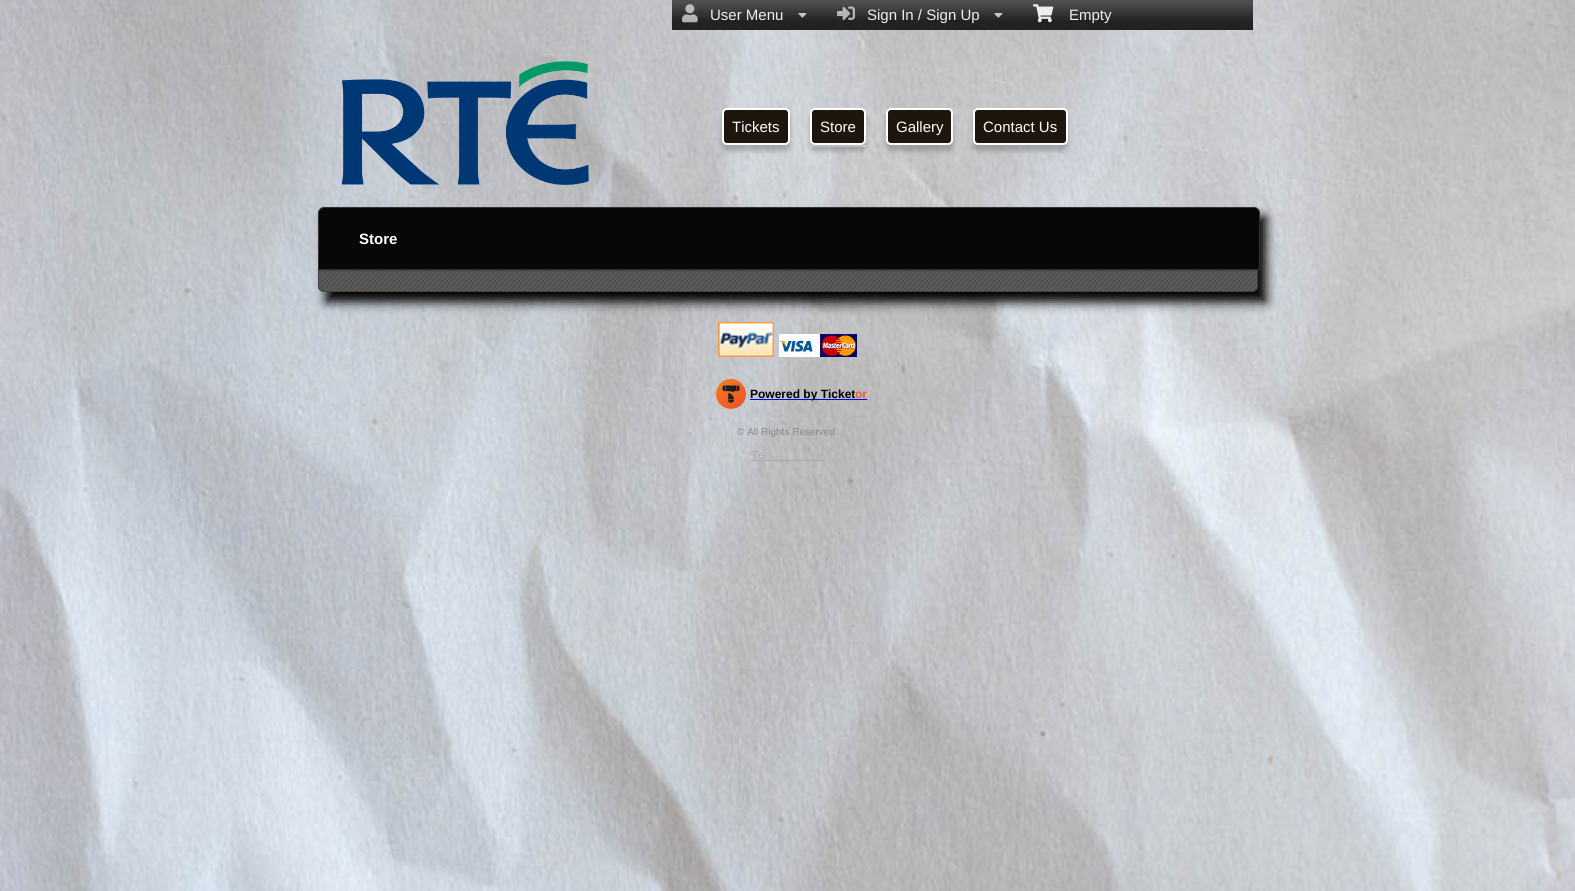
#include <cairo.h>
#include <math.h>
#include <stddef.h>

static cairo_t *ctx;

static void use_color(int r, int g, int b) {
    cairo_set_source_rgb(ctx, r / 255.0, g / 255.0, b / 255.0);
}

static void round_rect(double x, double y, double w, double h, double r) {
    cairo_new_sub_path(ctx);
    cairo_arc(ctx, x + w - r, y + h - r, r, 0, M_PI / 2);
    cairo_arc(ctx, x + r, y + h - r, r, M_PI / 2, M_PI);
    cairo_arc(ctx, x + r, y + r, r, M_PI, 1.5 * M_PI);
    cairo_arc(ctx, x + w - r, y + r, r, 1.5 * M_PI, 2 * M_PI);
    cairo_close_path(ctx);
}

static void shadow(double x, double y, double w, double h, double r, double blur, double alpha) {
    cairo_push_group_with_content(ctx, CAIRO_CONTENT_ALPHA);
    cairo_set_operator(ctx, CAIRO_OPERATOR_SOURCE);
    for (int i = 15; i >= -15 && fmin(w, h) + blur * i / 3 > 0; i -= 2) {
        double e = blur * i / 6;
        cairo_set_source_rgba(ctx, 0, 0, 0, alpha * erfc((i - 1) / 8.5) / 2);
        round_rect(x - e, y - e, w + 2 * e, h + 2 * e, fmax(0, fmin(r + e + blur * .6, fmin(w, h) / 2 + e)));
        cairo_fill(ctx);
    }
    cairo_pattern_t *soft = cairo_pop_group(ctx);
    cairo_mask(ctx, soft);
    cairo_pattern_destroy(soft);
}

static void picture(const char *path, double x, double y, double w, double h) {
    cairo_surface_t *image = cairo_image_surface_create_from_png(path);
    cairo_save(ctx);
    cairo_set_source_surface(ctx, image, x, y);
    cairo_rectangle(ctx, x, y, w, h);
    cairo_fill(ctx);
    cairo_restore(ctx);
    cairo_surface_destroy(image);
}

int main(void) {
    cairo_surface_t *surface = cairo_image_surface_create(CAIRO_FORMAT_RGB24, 1575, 891);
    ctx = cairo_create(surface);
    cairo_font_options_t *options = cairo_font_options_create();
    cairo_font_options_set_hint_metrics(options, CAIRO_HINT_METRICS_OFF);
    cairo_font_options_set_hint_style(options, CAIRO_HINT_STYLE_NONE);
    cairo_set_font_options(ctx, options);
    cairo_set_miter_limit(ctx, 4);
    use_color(255, 255, 255);
    cairo_paint(ctx);
    picture("img1.png", 0, 0, 1575, 891);
    picture("img2.png", 672, 0, 155, 20);
    use_color(34, 34, 34);
    cairo_rectangle(ctx, 672, 20, 581, 10);
    cairo_fill(ctx);
    picture("img3.png", 682, 4, 16, 19);
    cairo_select_font_face(ctx, "Liberation Sans", CAIRO_FONT_SLANT_NORMAL, CAIRO_FONT_WEIGHT_NORMAL);
    cairo_set_font_size(ctx, 15);
    use_color(238, 238, 238);
    cairo_move_to(ctx, 710, 20);
    cairo_show_text(ctx, "User Menu");
    picture("img4.png", 798, 13, 9, 5);
    picture("img5.png", 827, 0, 196, 20);
    picture("img6.png", 837, 6, 18, 15);
    cairo_move_to(ctx, 867, 20);
    cairo_show_text(ctx, "Sign In / Sign Up");
    picture("img4.png", 994, 13, 9, 5);
    picture("img7.png", 1023, 0, 230, 20);
    picture("img8.png", 1033, 4, 21, 19);
    cairo_move_to(ctx, 1069, 20);
    cairo_show_text(ctx, "Empty");
    picture("img9.png", 341, 61, 248, 124);
    use_color(50, 50, 50);
    shadow(722, 114, 68, 37, 5, 2.5, 0.28);
    use_color(28, 22, 13);
    round_rect(723, 109, 66, 35, 4);
    cairo_fill_preserve(ctx);
    use_color(255, 255, 255);
    cairo_stroke(ctx);
    cairo_move_to(ctx, 732, 132);
    cairo_show_text(ctx, "Tickets");
    use_color(238, 238, 238);
    cairo_rectangle(ctx, 810, 145, 56, 2);
    cairo_fill(ctx);
    use_color(50, 50, 50);
    shadow(810, 114, 56, 37, 5, 2.5, 0.28);
    use_color(28, 22, 13);
    round_rect(811, 109, 54, 35, 4);
    cairo_fill_preserve(ctx);
    use_color(255, 255, 255);
    cairo_stroke(ctx);
    cairo_move_to(ctx, 820, 132);
    cairo_show_text(ctx, "Store");
    use_color(50, 50, 50);
    shadow(886, 114, 67, 37, 5, 2.5, 0.28);
    use_color(28, 22, 13);
    round_rect(887, 109, 65, 35, 4);
    cairo_fill_preserve(ctx);
    use_color(255, 255, 255);
    cairo_stroke(ctx);
    cairo_move_to(ctx, 896, 132);
    cairo_show_text(ctx, "Gallery");
    use_color(50, 50, 50);
    shadow(973, 114, 95, 37, 5, 2.5, 0.28);
    use_color(28, 22, 13);
    round_rect(974, 109, 93, 35, 4);
    cairo_fill_preserve(ctx);
    use_color(255, 255, 255);
    cairo_stroke(ctx);
    cairo_move_to(ctx, 983, 132);
    cairo_show_text(ctx, "Contact Us");
    use_color(0, 0, 0);
    shadow(326, 217, 940, 85, 0, 5.5, 1);
    use_color(7, 7, 7);
    cairo_new_path(ctx);
    cairo_move_to(ctx, 324, 207.5);
    cairo_line_to(ctx, 1254, 207.5);
    cairo_curve_to(ctx, 1257, 207.5, 1259.5, 210, 1259.5, 213);
    cairo_line_to(ctx, 1259.5, 269.5);
    cairo_line_to(ctx, 318.5, 269.5);
    cairo_line_to(ctx, 318.5, 213);
    cairo_curve_to(ctx, 318.5, 210, 321, 207.5, 324, 207.5);
    cairo_close_path(ctx);
    cairo_fill_preserve(ctx);
    use_color(51, 51, 51);
    cairo_set_line_width(ctx, 1);
    cairo_stroke(ctx);
    cairo_select_font_face(ctx, "Liberation Sans", CAIRO_FONT_SLANT_NORMAL, CAIRO_FONT_WEIGHT_BOLD);
    use_color(255, 255, 255);
    cairo_move_to(ctx, 359, 244);
    cairo_show_text(ctx, "Store");
    picture("img10.png", 318, 271, 940, 21);
    cairo_new_path(ctx);
    cairo_move_to(ctx, 318.5, 270.5);
    cairo_line_to(ctx, 1257.5, 270.5);
    cairo_line_to(ctx, 1257.5, 286);
    cairo_curve_to(ctx, 1257.5, 289, 1255, 291.5, 1252, 291.5);
    cairo_line_to(ctx, 324, 291.5);
    cairo_curve_to(ctx, 321, 291.5, 318.5, 289, 318.5, 286);
    cairo_close_path(ctx);
    use_color(65, 65, 65);
    cairo_stroke(ctx);
    picture("img11.png", 718, 322, 56, 35);
    picture("img12.png", 779, 334, 78, 23);
    picture("img13.png", 716, 379, 30, 30);
    use_color(0, 0, 238);
    cairo_rectangle(ctx, 750, 399, 105, 1);
    cairo_fill(ctx);
    cairo_set_font_size(ctx, 12);
    use_color(0, 0, 0);
    cairo_move_to(ctx, 750, 398);
    cairo_show_text(ctx, "Powered by Ticket");
    use_color(0, 0, 238);
    cairo_rectangle(ctx, 855, 399, 12, 1);
    cairo_fill(ctx);
    use_color(237, 97, 43);
    cairo_move_to(ctx, 855, 398);
    cairo_show_text(ctx, "or");
    cairo_select_font_face(ctx, "Liberation Sans", CAIRO_FONT_SLANT_NORMAL, CAIRO_FONT_WEIGHT_NORMAL);
    cairo_set_font_size(ctx, 10);
    use_color(136, 136, 136);
    cairo_move_to(ctx, 737, 435);
    cairo_show_text(ctx, "© All Rights Reserved.");
    cairo_set_font_size(ctx, 12);
    use_color(170, 170, 170);
    cairo_move_to(ctx, 751, 459);
    cairo_show_text(ctx, "Ter");
    cairo_move_to(ctx, 817, 459);
    cairo_show_text(ctx, "e");
    cairo_rectangle(ctx, 751, 460, 73, 1);
    cairo_fill(ctx);
    cairo_surface_write_to_png(surface, "result.png");
    cairo_font_options_destroy(options);
    cairo_destroy(ctx);
    cairo_surface_destroy(surface);
    return 0;
}
